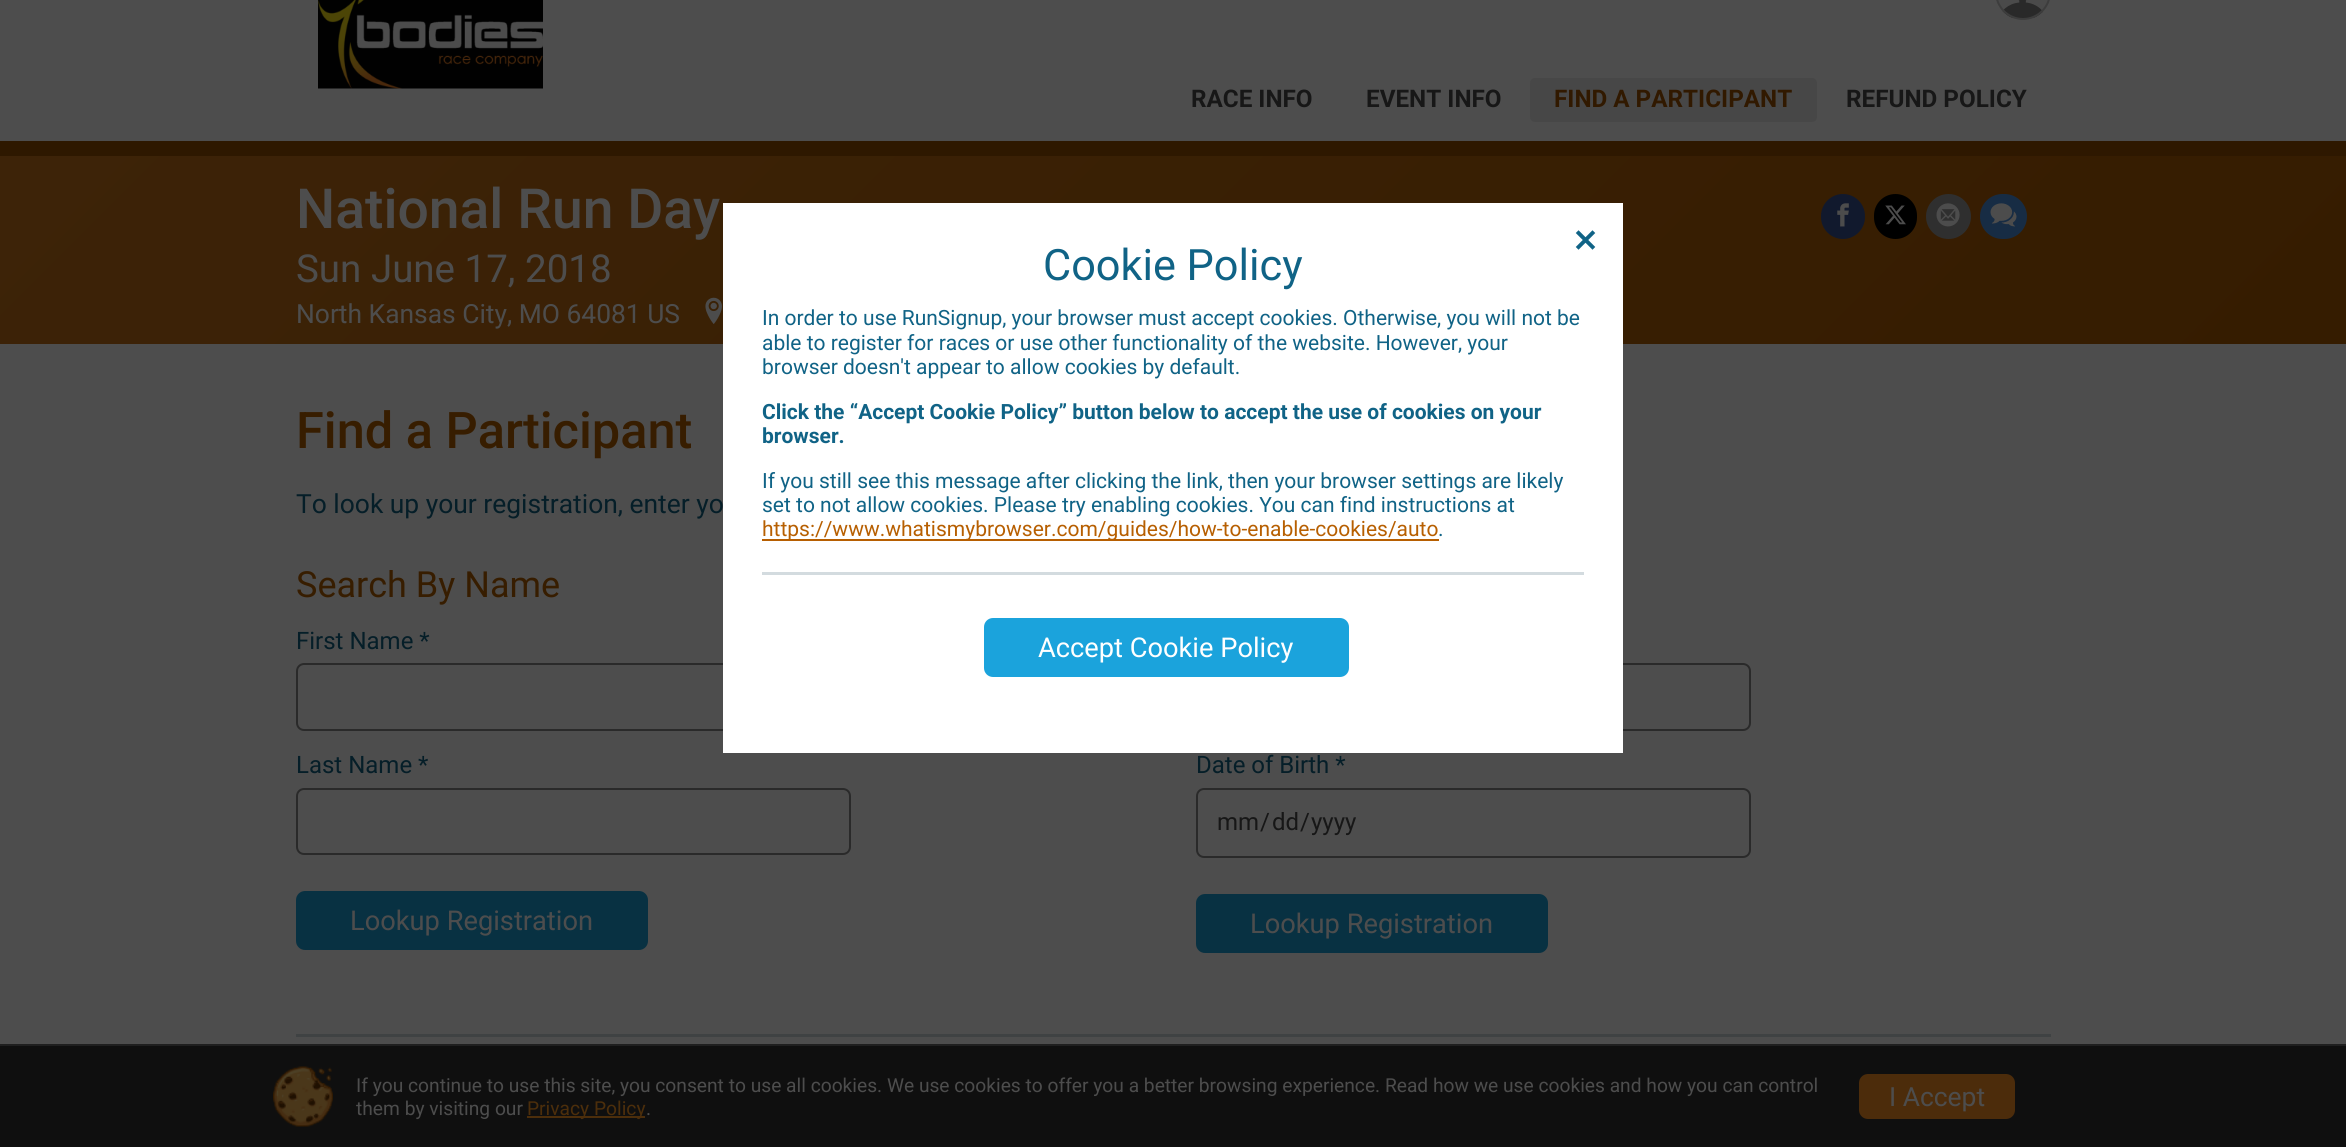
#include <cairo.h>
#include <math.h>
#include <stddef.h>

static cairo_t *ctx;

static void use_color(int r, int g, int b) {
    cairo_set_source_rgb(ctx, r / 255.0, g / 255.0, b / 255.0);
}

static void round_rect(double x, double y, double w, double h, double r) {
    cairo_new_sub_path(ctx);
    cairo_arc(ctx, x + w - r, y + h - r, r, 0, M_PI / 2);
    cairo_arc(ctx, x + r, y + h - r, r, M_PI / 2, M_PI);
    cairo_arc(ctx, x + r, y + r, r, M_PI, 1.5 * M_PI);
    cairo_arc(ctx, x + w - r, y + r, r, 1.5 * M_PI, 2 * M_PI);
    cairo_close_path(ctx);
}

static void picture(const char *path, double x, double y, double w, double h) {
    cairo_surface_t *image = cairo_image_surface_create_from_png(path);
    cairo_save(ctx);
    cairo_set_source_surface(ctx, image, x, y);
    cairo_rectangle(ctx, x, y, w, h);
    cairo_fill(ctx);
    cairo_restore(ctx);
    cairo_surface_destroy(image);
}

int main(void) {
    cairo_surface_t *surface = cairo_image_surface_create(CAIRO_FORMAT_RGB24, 2346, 1147);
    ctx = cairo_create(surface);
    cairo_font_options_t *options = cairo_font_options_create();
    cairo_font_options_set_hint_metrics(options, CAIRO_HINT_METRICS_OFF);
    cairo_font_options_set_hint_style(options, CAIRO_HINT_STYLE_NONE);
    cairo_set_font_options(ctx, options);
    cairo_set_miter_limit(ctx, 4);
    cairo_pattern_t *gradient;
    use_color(77, 77, 77);
    cairo_paint(ctx);
    picture("img1.png", 318, 0, 225, 89);
    picture("img2.png", 1997, 0, 52, 18);
    round_rect(1996, -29, 54, 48, 27);
    use_color(61, 61, 61);
    cairo_stroke(ctx);
    cairo_select_font_face(ctx, "Roboto", CAIRO_FONT_SLANT_NORMAL, CAIRO_FONT_WEIGHT_BOLD);
    cairo_set_font_size(ctx, 24.25);
    use_color(23, 23, 23);
    cairo_move_to(ctx, 1191, 107);
    cairo_show_text(ctx, "RACE INFO");
    cairo_move_to(ctx, 1366, 107);
    cairo_show_text(ctx, "EVENT INFO");
    use_color(71, 71, 71);
    round_rect(1530, 78, 287, 44, 5);
    cairo_fill(ctx);
    use_color(49, 25, 0);
    cairo_move_to(ctx, 1554, 107);
    cairo_show_text(ctx, "FIND A PARTICIPANT");
    use_color(23, 23, 23);
    cairo_move_to(ctx, 1846, 107);
    cairo_show_text(ctx, "REFUND POLICY");
    gradient = cairo_pattern_create_linear(1806, 883, 540, -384);
    cairo_pattern_add_color_stop_rgba(gradient, 0, 0.208, 0.11, 0, 1);
    cairo_pattern_add_color_stop_rgba(gradient, 1, 0.239, 0.137, 0.031, 1);
    cairo_set_source(ctx, gradient);
    cairo_pattern_destroy(gradient);
    cairo_rectangle(ctx, 0, 156, 2346, 188);
    cairo_fill(ctx);
    use_color(46, 24, 0);
    cairo_rectangle(ctx, 0, 141, 2346, 15);
    cairo_fill(ctx);
    cairo_select_font_face(ctx, "Roboto Medium", CAIRO_FONT_SLANT_NORMAL, CAIRO_FONT_WEIGHT_NORMAL);
    cairo_set_font_size(ctx, 55.25);
    use_color(77, 77, 77);
    cairo_move_to(ctx, 296, 228);
    cairo_show_text(ctx, "National Run Day");
    cairo_select_font_face(ctx, "Roboto", CAIRO_FONT_SLANT_NORMAL, CAIRO_FONT_WEIGHT_NORMAL);
    cairo_set_font_size(ctx, 38.5);
    cairo_move_to(ctx, 296, 282);
    cairo_show_text(ctx, "Sun June 17, 2018");
    cairo_set_font_size(ctx, 26.4);
    cairo_move_to(ctx, 296, 323);
    cairo_show_text(ctx, "North Kansas City, MO 64081 US");
    picture("img3.png", 705, 297, 17, 27);
    use_color(17, 25, 45);
    round_rect(1821, 194, 44, 45, 22);
    cairo_fill(ctx);
    picture("img4.png", 1837, 203, 12, 24);
    use_color(0, 0, 0);
    round_rect(1874, 194, 43, 45, 21.5);
    cairo_fill(ctx);
    picture("img5.png", 1885, 205, 21, 20);
    use_color(47, 47, 47);
    cairo_arc(ctx, 1948.5, 216.5, 22.5, 0, 2 * M_PI);
    cairo_fill(ctx);
    picture("img6.png", 1936, 203, 24, 24);
    use_color(23, 44, 68);
    round_rect(1980, 194, 47, 45, 22.5);
    cairo_fill(ctx);
    picture("img7.png", 1990, 203, 27, 24);
    cairo_select_font_face(ctx, "Roboto Medium", CAIRO_FONT_SLANT_NORMAL, CAIRO_FONT_WEIGHT_NORMAL);
    cairo_set_font_size(ctx, 50.5);
    use_color(55, 29, 0);
    cairo_move_to(ctx, 296, 448);
    cairo_show_text(ctx, "Find a Participant");
    cairo_select_font_face(ctx, "Roboto", CAIRO_FONT_SLANT_NORMAL, CAIRO_FONT_WEIGHT_NORMAL);
    cairo_set_font_size(ctx, 26.4);
    use_color(5, 30, 40);
    cairo_move_to(ctx, 296, 513);
    cairo_show_text(ctx, "To look up your registration, enter yo");
    cairo_set_font_size(ctx, 36);
    use_color(55, 29, 0);
    cairo_move_to(ctx, 296, 597);
    cairo_show_text(ctx, "Search By Name");
    cairo_set_font_size(ctx, 24);
    use_color(5, 30, 40);
    cairo_move_to(ctx, 296, 649);
    cairo_show_text(ctx, "First Name *");
    round_rect(297, 664, 553, 66, 7);
    use_color(42, 42, 42);
    cairo_stroke(ctx);
    use_color(5, 30, 40);
    cairo_move_to(ctx, 296, 773);
    cairo_show_text(ctx, "Last Name *");
    round_rect(297, 789, 553, 65, 7);
    use_color(42, 42, 42);
    cairo_stroke(ctx);
    use_color(8, 49, 66);
    round_rect(296, 891, 352, 59, 9);
    cairo_fill(ctx);
    cairo_set_font_size(ctx, 27.25);
    use_color(77, 77, 77);
    cairo_move_to(ctx, 350, 930);
    cairo_show_text(ctx, "Lookup Registration");
    round_rect(1197, 664, 553, 66, 7);
    use_color(42, 42, 42);
    cairo_stroke(ctx);
    cairo_set_font_size(ctx, 24);
    use_color(5, 30, 40);
    cairo_move_to(ctx, 1196, 773);
    cairo_show_text(ctx, "Date of Birth *");
    round_rect(1197, 789, 553, 68, 7);
    use_color(42, 42, 42);
    cairo_stroke(ctx);
    use_color(23, 23, 23);
    cairo_move_to(ctx, 1217, 830);
    cairo_show_text(ctx, "mm");
    cairo_move_to(ctx, 1260, 830);
    cairo_show_text(ctx, "/");
    cairo_move_to(ctx, 1272, 830);
    cairo_show_text(ctx, "dd");
    cairo_move_to(ctx, 1300, 830);
    cairo_show_text(ctx, "/");
    cairo_move_to(ctx, 1311, 830);
    cairo_show_text(ctx, "yyyy");
    use_color(8, 49, 66);
    round_rect(1196, 894, 352, 59, 9);
    cairo_fill(ctx);
    cairo_set_font_size(ctx, 27.25);
    use_color(77, 77, 77);
    cairo_move_to(ctx, 1250, 933);
    cairo_show_text(ctx, "Lookup Registration");
    use_color(63, 66, 67);
    cairo_rectangle(ctx, 296, 1034, 1755, 3);
    cairo_fill(ctx);
    cairo_rectangle(ctx, 724, 204, 898, 548);
    use_color(255, 255, 255);
    cairo_stroke(ctx);
    cairo_rectangle(ctx, 725, 205, 896, 546);
    cairo_fill(ctx);
    picture("img8.png", 1575, 230, 21, 20);
    cairo_set_font_size(ctx, 43.25);
    use_color(16, 99, 134);
    cairo_move_to(ctx, 1043, 280);
    cairo_show_text(ctx, "Cookie Policy");
    cairo_set_font_size(ctx, 21);
    cairo_move_to(ctx, 762, 325);
    cairo_show_text(ctx, "In order to use RunSignup, your browser must accept cookies. Otherwise, you will not be");
    cairo_move_to(ctx, 762, 350);
    cairo_show_text(ctx, "able to register for races or use other functionality of the website. However, your");
    cairo_move_to(ctx, 762, 374);
    cairo_show_text(ctx, "browser doesn't appear to allow cookies by default.");
    cairo_select_font_face(ctx, "Roboto", CAIRO_FONT_SLANT_NORMAL, CAIRO_FONT_WEIGHT_BOLD);
    cairo_move_to(ctx, 762, 419);
    cairo_show_text(ctx, "Click the “Accept Cookie Policy” button below to accept the use of cookies on your");
    cairo_move_to(ctx, 762, 443);
    cairo_show_text(ctx, "browser.");
    cairo_select_font_face(ctx, "Roboto", CAIRO_FONT_SLANT_NORMAL, CAIRO_FONT_WEIGHT_NORMAL);
    cairo_move_to(ctx, 762, 488);
    cairo_show_text(ctx, "If you still see this message after clicking the link, then your browser settings are likely");
    cairo_move_to(ctx, 762, 512);
    cairo_show_text(ctx, "set to not allow cookies. Please try enabling cookies. You can find instructions at");
    use_color(183, 95, 1);
    cairo_rectangle(ctx, 762, 539, 677, 2);
    cairo_fill(ctx);
    cairo_move_to(ctx, 762, 536);
    cairo_show_text(ctx, "https://www.whatismybrowser.com/guides/how-to-enable-cookies/auto");
    use_color(16, 99, 134);
    cairo_move_to(ctx, 1438, 536);
    cairo_show_text(ctx, ".");
    use_color(211, 219, 223);
    cairo_rectangle(ctx, 762, 572, 822, 3);
    cairo_fill(ctx);
    use_color(27, 163, 220);
    round_rect(984, 618, 365, 59, 9);
    cairo_fill(ctx);
    cairo_set_font_size(ctx, 27.25);
    use_color(255, 255, 255);
    cairo_move_to(ctx, 1038, 657);
    cairo_show_text(ctx, "Accept Cookie Policy");
    use_color(15, 15, 15);
    cairo_rectangle(ctx, 0, 1046, 2346, 101);
    cairo_fill(ctx);
    use_color(31, 31, 31);
    cairo_rectangle(ctx, 0, 1044, 2346, 2);
    cairo_fill(ctx);
    picture("img9.png", 273, 1066, 60, 61);
    cairo_set_font_size(ctx, 19.2);
    use_color(77, 77, 77);
    cairo_move_to(ctx, 356, 1092);
    cairo_show_text(ctx, "If you continue to use this site, you consent to use all cookies. We use cookies to offer you a better browsing experience. Read how we use cookies and how you can control");
    cairo_move_to(ctx, 356, 1115);
    cairo_show_text(ctx, "them by visiting our");
    use_color(76, 46, 11);
    cairo_rectangle(ctx, 527, 1116, 118, 2);
    cairo_fill(ctx);
    cairo_move_to(ctx, 527, 1115);
    cairo_show_text(ctx, "Privacy Policy");
    use_color(77, 77, 77);
    cairo_move_to(ctx, 646, 1115);
    cairo_show_text(ctx, ".");
    use_color(76, 44, 11);
    round_rect(1859, 1074, 156, 45, 9);
    cairo_fill(ctx);
    cairo_set_font_size(ctx, 26.4);
    use_color(77, 77, 77);
    cairo_move_to(ctx, 1889, 1106);
    cairo_show_text(ctx, "I Accept");
    cairo_surface_write_to_png(surface, "result.png");
    cairo_font_options_destroy(options);
    cairo_destroy(ctx);
    cairo_surface_destroy(surface);
    return 0;
}
